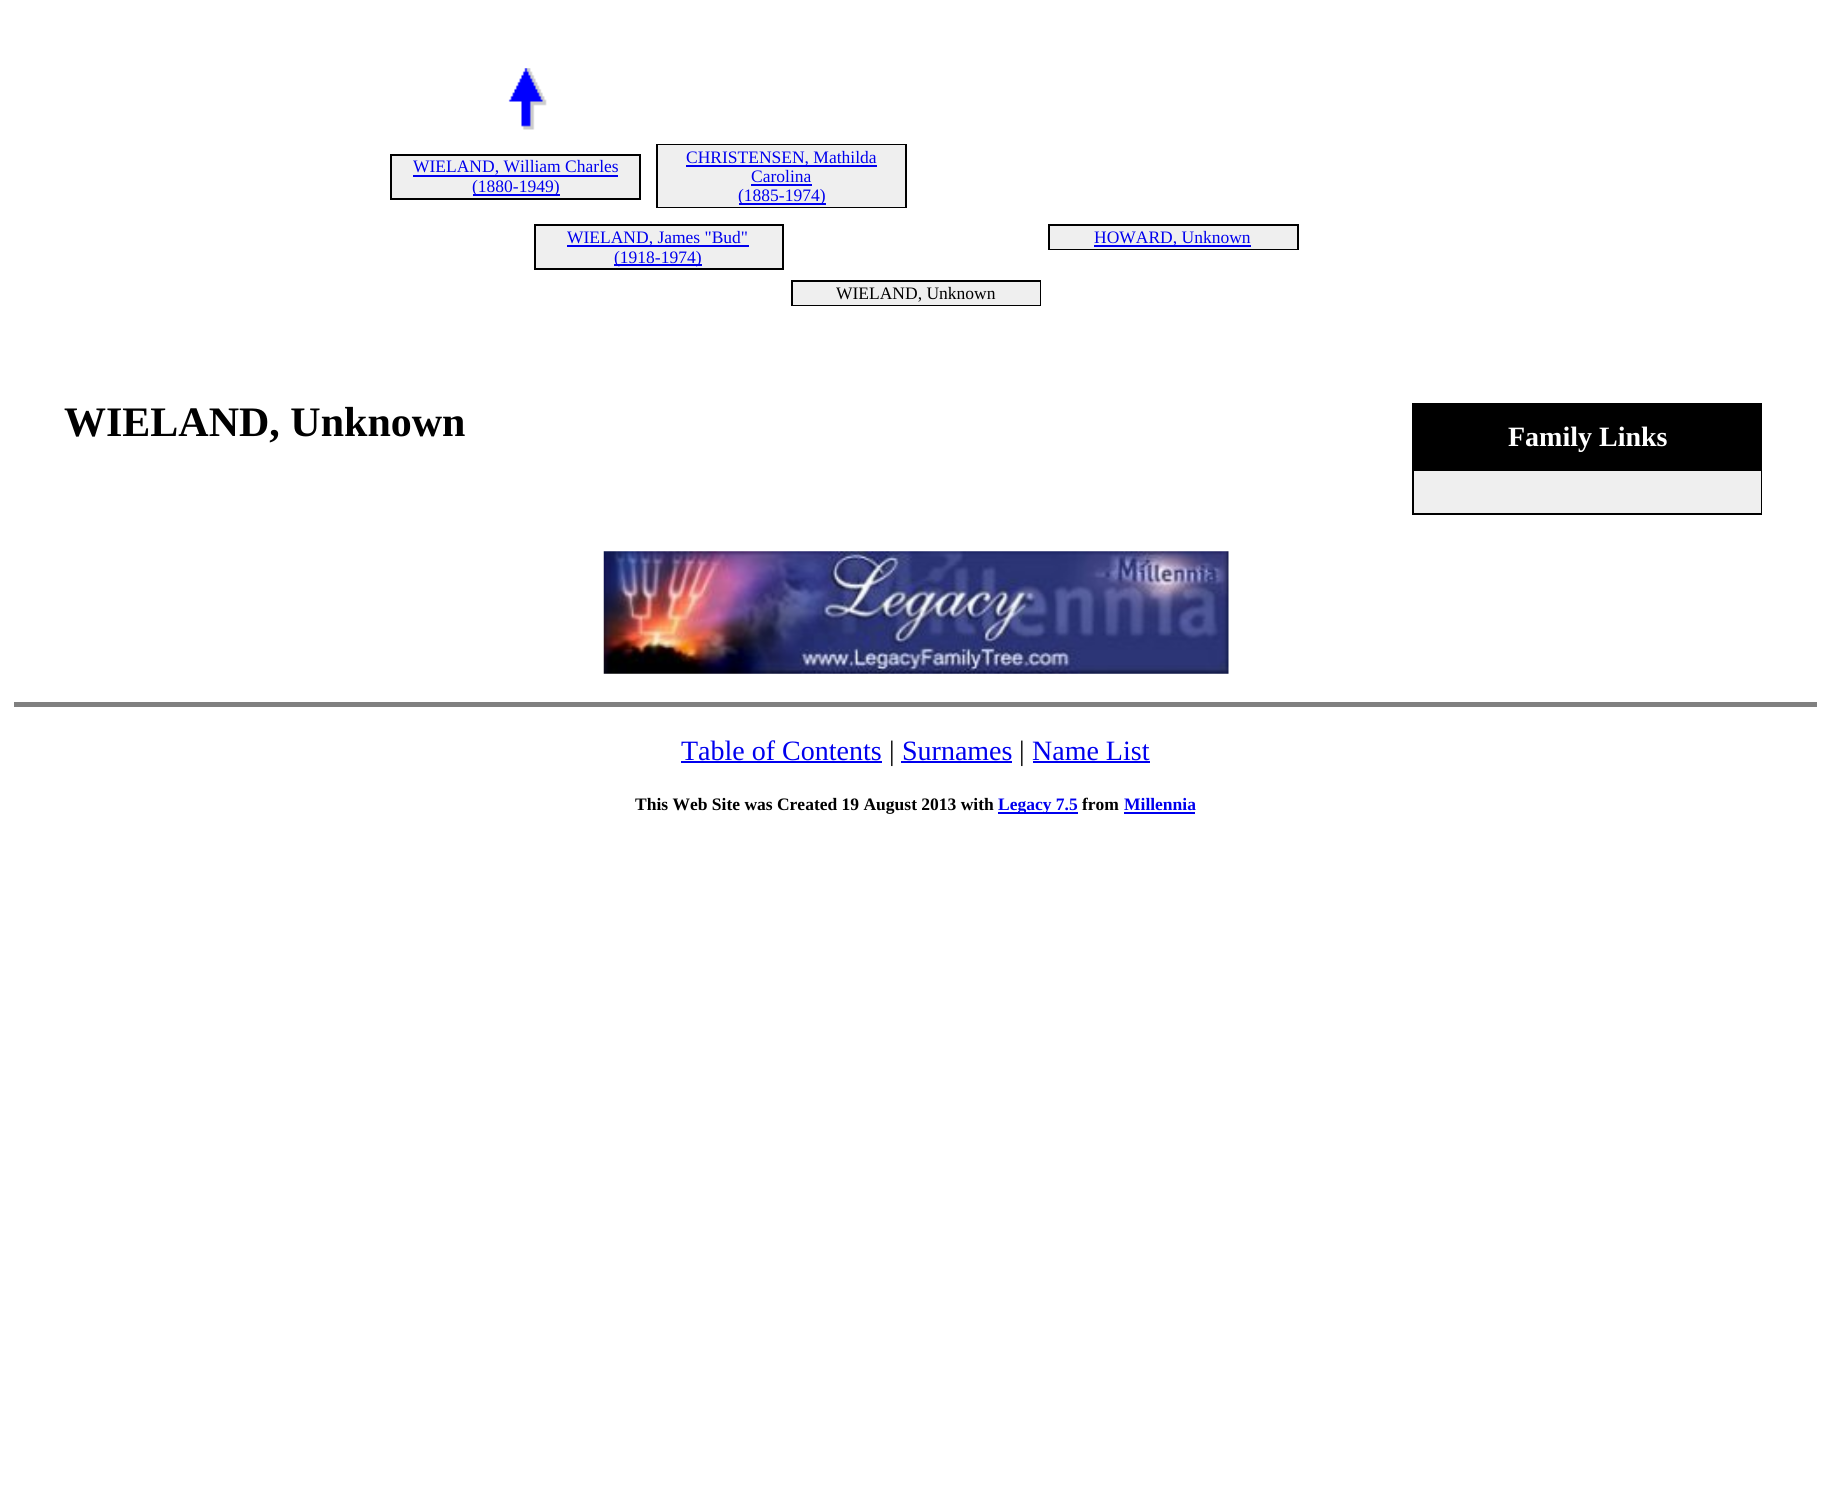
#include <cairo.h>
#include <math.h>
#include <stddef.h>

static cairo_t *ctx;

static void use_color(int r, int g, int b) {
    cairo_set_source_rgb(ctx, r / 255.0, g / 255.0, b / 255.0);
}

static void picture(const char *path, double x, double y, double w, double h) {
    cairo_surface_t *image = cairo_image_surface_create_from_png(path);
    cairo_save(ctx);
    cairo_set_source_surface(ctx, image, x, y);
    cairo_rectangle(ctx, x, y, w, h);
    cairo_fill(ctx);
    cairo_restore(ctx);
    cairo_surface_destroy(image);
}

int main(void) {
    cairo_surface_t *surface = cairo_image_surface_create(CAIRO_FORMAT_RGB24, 1829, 1490);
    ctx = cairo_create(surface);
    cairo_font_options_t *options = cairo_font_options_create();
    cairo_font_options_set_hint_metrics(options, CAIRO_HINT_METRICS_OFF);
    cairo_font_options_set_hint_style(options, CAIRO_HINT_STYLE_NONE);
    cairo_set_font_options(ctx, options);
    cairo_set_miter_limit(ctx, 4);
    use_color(255, 255, 255);
    cairo_paint(ctx);
    picture("img1.png", 508, 68, 39, 62);
    use_color(0, 0, 0);
    cairo_rectangle(ctx, 390, 154, 251, 46);
    cairo_fill(ctx);
    use_color(239, 239, 239);
    cairo_rectangle(ctx, 392, 156, 247, 42);
    cairo_fill(ctx);
    cairo_select_font_face(ctx, "Liberation Serif", CAIRO_FONT_SLANT_NORMAL, CAIRO_FONT_WEIGHT_NORMAL);
    cairo_set_font_size(ctx, 17.5);
    use_color(0, 0, 238);
    cairo_move_to(ctx, 413, 172);
    cairo_show_text(ctx, "WIELAND, William Charles");
    cairo_rectangle(ctx, 413, 175, 205, 2);
    cairo_fill(ctx);
    cairo_rectangle(ctx, 473, 194, 87, 2);
    cairo_fill(ctx);
    cairo_move_to(ctx, 472, 192);
    cairo_show_text(ctx, "(1880-1949)");
    use_color(0, 0, 0);
    cairo_rectangle(ctx, 656, 144, 251, 64);
    cairo_fill(ctx);
    use_color(239, 239, 239);
    cairo_rectangle(ctx, 658, 145, 247, 62);
    cairo_fill(ctx);
    use_color(0, 0, 238);
    cairo_rectangle(ctx, 686, 165, 191, 2);
    cairo_fill(ctx);
    cairo_move_to(ctx, 686, 163);
    cairo_show_text(ctx, "CHRISTENSEN, Mathilda");
    cairo_move_to(ctx, 751, 182);
    cairo_show_text(ctx, "Carolina");
    cairo_rectangle(ctx, 751, 184, 61, 2);
    cairo_fill(ctx);
    cairo_rectangle(ctx, 739, 203, 87, 2);
    cairo_fill(ctx);
    cairo_move_to(ctx, 738, 201);
    cairo_show_text(ctx, "(1885-1974)");
    use_color(0, 0, 0);
    cairo_rectangle(ctx, 534, 224, 250, 46);
    cairo_fill(ctx);
    use_color(239, 239, 239);
    cairo_rectangle(ctx, 536, 226, 246, 42);
    cairo_fill(ctx);
    use_color(0, 0, 238);
    cairo_rectangle(ctx, 567, 245, 182, 2);
    cairo_fill(ctx);
    cairo_move_to(ctx, 567, 243);
    cairo_show_text(ctx, "WIELAND, James \"Bud\"");
    cairo_rectangle(ctx, 614, 264, 88, 2);
    cairo_fill(ctx);
    cairo_move_to(ctx, 614, 263);
    cairo_show_text(ctx, "(1918-1974)");
    use_color(0, 0, 0);
    cairo_rectangle(ctx, 1048, 224, 251, 26);
    cairo_fill(ctx);
    use_color(239, 239, 239);
    cairo_rectangle(ctx, 1050, 226, 247, 23);
    cairo_fill(ctx);
    use_color(0, 0, 238);
    cairo_rectangle(ctx, 1094, 245, 157, 2);
    cairo_fill(ctx);
    cairo_move_to(ctx, 1094, 243);
    cairo_show_text(ctx, "HOWARD, Unknown");
    use_color(0, 0, 0);
    cairo_rectangle(ctx, 791, 280, 250, 26);
    cairo_fill(ctx);
    use_color(239, 239, 239);
    cairo_rectangle(ctx, 793, 282, 247, 23);
    cairo_fill(ctx);
    use_color(0, 0, 0);
    cairo_move_to(ctx, 836, 299);
    cairo_show_text(ctx, "WIELAND, Unknown");
    cairo_select_font_face(ctx, "Liberation Serif", CAIRO_FONT_SLANT_NORMAL, CAIRO_FONT_WEIGHT_BOLD);
    cairo_set_font_size(ctx, 42);
    cairo_move_to(ctx, 64, 436);
    cairo_show_text(ctx, "WIELAND, Unknown");
    cairo_rectangle(ctx, 1412, 403, 350, 112);
    cairo_fill(ctx);
    cairo_set_font_size(ctx, 28);
    use_color(255, 255, 255);
    cairo_move_to(ctx, 1508, 446);
    cairo_show_text(ctx, "Family Links");
    use_color(239, 239, 239);
    cairo_rectangle(ctx, 1414, 471, 347, 42);
    cairo_fill(ctx);
    picture("img2.png", 603, 551, 626, 123);
    use_color(128, 128, 128);
    cairo_rectangle(ctx, 14, 702, 1803, 5);
    cairo_fill(ctx);
    cairo_select_font_face(ctx, "Liberation Serif", CAIRO_FONT_SLANT_NORMAL, CAIRO_FONT_WEIGHT_NORMAL);
    use_color(0, 0, 238);
    cairo_move_to(ctx, 681, 760);
    cairo_show_text(ctx, "Table of Contents");
    cairo_rectangle(ctx, 681, 761, 201, 2);
    cairo_fill(ctx);
    use_color(0, 0, 0);
    cairo_move_to(ctx, 889, 760);
    cairo_show_text(ctx, "|");
    use_color(0, 0, 238);
    cairo_move_to(ctx, 902, 760);
    cairo_show_text(ctx, "Surnames");
    cairo_rectangle(ctx, 901, 761, 111, 2);
    cairo_fill(ctx);
    use_color(0, 0, 0);
    cairo_move_to(ctx, 1019, 760);
    cairo_show_text(ctx, "|");
    use_color(0, 0, 238);
    cairo_move_to(ctx, 1032, 760);
    cairo_show_text(ctx, "Name List");
    cairo_rectangle(ctx, 1033, 761, 117, 2);
    cairo_fill(ctx);
    cairo_select_font_face(ctx, "Liberation Serif", CAIRO_FONT_SLANT_NORMAL, CAIRO_FONT_WEIGHT_BOLD);
    cairo_set_font_size(ctx, 17.5);
    use_color(0, 0, 0);
    cairo_move_to(ctx, 635, 810);
    cairo_show_text(ctx, "This Web Site was Created 19 August 2013 with");
    use_color(0, 0, 238);
    cairo_rectangle(ctx, 998, 812, 80, 2);
    cairo_fill(ctx);
    cairo_move_to(ctx, 998, 810);
    cairo_show_text(ctx, "Legacy 7.5");
    use_color(0, 0, 0);
    cairo_move_to(ctx, 1082, 810);
    cairo_show_text(ctx, "from");
    use_color(0, 0, 238);
    cairo_move_to(ctx, 1124, 810);
    cairo_show_text(ctx, "Millennia");
    cairo_rectangle(ctx, 1124, 812, 71, 2);
    cairo_fill(ctx);
    cairo_surface_write_to_png(surface, "result.png");
    cairo_font_options_destroy(options);
    cairo_destroy(ctx);
    cairo_surface_destroy(surface);
    return 0;
}
